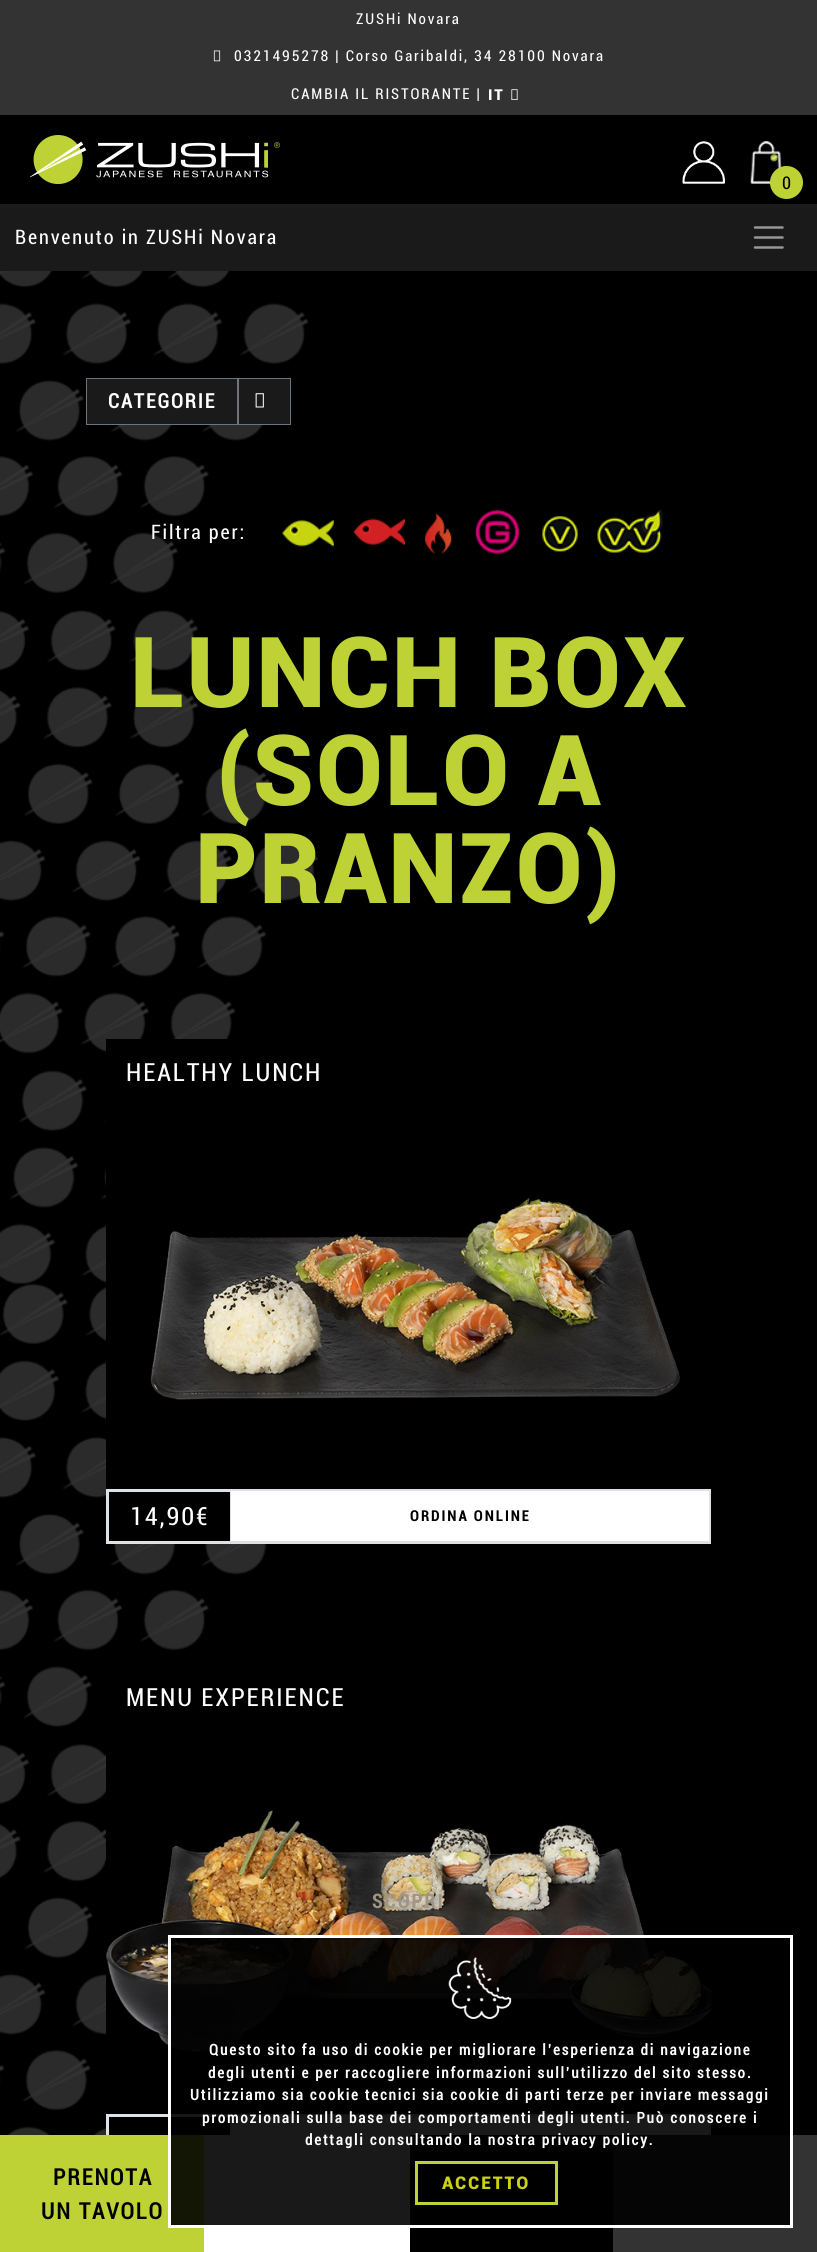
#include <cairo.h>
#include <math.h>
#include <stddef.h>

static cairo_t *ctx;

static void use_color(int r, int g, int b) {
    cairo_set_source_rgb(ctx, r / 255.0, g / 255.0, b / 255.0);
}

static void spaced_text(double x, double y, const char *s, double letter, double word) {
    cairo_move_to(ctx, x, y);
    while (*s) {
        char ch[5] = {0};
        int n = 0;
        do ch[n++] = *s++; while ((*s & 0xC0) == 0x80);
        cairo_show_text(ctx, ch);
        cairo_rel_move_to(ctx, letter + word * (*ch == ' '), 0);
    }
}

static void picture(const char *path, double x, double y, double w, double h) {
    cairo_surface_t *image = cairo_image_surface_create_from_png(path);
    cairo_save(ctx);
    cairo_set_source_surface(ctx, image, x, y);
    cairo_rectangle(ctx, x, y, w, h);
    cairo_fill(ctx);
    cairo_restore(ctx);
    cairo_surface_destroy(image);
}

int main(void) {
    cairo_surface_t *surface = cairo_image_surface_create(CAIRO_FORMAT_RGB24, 817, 2252);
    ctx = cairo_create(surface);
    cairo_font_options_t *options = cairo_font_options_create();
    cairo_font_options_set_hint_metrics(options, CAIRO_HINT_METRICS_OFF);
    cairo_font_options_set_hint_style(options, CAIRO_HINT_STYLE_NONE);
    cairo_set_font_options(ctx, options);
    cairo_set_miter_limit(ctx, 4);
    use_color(0, 0, 0);
    cairo_paint(ctx);
    use_color(51, 51, 51);
    cairo_rectangle(ctx, 0, 0, 817, 115);
    cairo_fill(ctx);
    cairo_select_font_face(ctx, "Roboto", CAIRO_FONT_SLANT_NORMAL, CAIRO_FONT_WEIGHT_NORMAL);
    cairo_set_font_size(ctx, 15);
    use_color(255, 255, 255);
    spaced_text(356, 24, "ZUSHi Novara", 1.88, 0);
    picture("img1.png", 213, 50, 8, 12);
    spaced_text(234, 61, "0321495278 | Corso Garibaldi, 34 28100 Novara", 1.88, 0);
    spaced_text(291, 99, "CAMBIA IL RISTORANTE |", 1.88, 0);
    cairo_select_font_face(ctx, "Roboto Black", CAIRO_FONT_SLANT_NORMAL, CAIRO_FONT_WEIGHT_NORMAL);
    spaced_text(488, 100, "IT", 1.88, 0);
    picture("img2.png", 511, 89, 7, 11);
    picture("img3.png", 30, 135, 250, 49);
    picture("img4.png", 682, 141, 43, 43);
    picture("img5.png", 750, 141, 32, 43);
    use_color(190, 210, 53);
    cairo_arc(ctx, 786.5, 182.5, 16.5, 0, 2 * M_PI);
    cairo_fill(ctx);
    cairo_select_font_face(ctx, "Roboto", CAIRO_FONT_SLANT_NORMAL, CAIRO_FONT_WEIGHT_NORMAL);
    cairo_set_font_size(ctx, 17.5);
    use_color(0, 0, 0);
    cairo_move_to(ctx, 782, 189);
    cairo_show_text(ctx, "0");
    use_color(26, 26, 26);
    cairo_rectangle(ctx, 0, 204, 817, 67);
    cairo_fill(ctx);
    cairo_set_font_size(ctx, 20);
    use_color(255, 255, 255);
    spaced_text(15, 244, "Benvenuto in ZUSHi Novara", 1.88, 0);
    cairo_new_path(ctx);
    cairo_move_to(ctx, 755, 227.5);
    cairo_line_to(ctx, 782.5, 227.5);
    cairo_move_to(ctx, 755, 237.5);
    cairo_line_to(ctx, 782.5, 237.5);
    cairo_move_to(ctx, 755, 247.5);
    cairo_line_to(ctx, 782.5, 247.5);
    use_color(152, 152, 152);
    cairo_set_line_width(ctx, 2.5);
    cairo_set_line_cap(ctx, CAIRO_LINE_CAP_ROUND);
    cairo_stroke(ctx);
    picture("img6.png", 0, 271, 318, 1864);
    use_color(26, 26, 26);
    cairo_rectangle(ctx, 86.5, 378.5, 151, 46);
    cairo_fill_preserve(ctx);
    use_color(108, 117, 125);
    cairo_set_line_width(ctx, 1);
    cairo_set_line_cap(ctx, CAIRO_LINE_CAP_BUTT);
    cairo_stroke(ctx);
    cairo_select_font_face(ctx, "Roboto", CAIRO_FONT_SLANT_NORMAL, CAIRO_FONT_WEIGHT_BOLD);
    use_color(255, 255, 255);
    spaced_text(108, 408, "CATEGORIE", 1.88, 0);
    use_color(26, 26, 26);
    cairo_rectangle(ctx, 238.5, 378.5, 52, 46);
    cairo_fill_preserve(ctx);
    use_color(108, 117, 125);
    cairo_stroke(ctx);
    picture("img7.png", 255, 393, 9, 15);
    cairo_select_font_face(ctx, "Roboto", CAIRO_FONT_SLANT_NORMAL, CAIRO_FONT_WEIGHT_NORMAL);
    use_color(255, 255, 255);
    spaced_text(151, 539, "Filtra per:", 1.88, 0);
    picture("img8.png", 282, 519, 52, 28);
    picture("img9.png", 353, 518, 52, 28);
    picture("img10.png", 425, 513, 27, 41);
    picture("img11.png", 475, 510, 44, 44);
    picture("img12.png", 542, 516, 36, 36);
    picture("img13.png", 597, 510, 66, 43);
    cairo_select_font_face(ctx, "Roboto Black", CAIRO_FONT_SLANT_NORMAL, CAIRO_FONT_WEIGHT_NORMAL);
    cairo_set_font_size(ctx, 98);
    use_color(190, 210, 53);
    spaced_text(130, 707, "LUNCH BOX", 1.88, 0);
    spaced_text(216, 805, "(SOLO A", 1.88, 0);
    spaced_text(195, 903, "PRANZO)", 1.88, 0);
    use_color(0, 0, 0);
    cairo_rectangle(ctx, 106, 1039, 150, 87);
    cairo_fill(ctx);
    cairo_select_font_face(ctx, "Roboto", CAIRO_FONT_SLANT_NORMAL, CAIRO_FONT_WEIGHT_NORMAL);
    cairo_set_font_size(ctx, 25);
    use_color(255, 255, 255);
    spaced_text(126, 1081, "HEALTHY LUNCH", 1.88, 0);
    use_color(0, 0, 0);
    cairo_rectangle(ctx, 106, 1126, 212, 363);
    cairo_fill(ctx);
    picture("img14.png", 150, 1192, 530, 208);
    cairo_rectangle(ctx, 109, 1492, 121, 49);
    cairo_fill(ctx);
    cairo_rectangle(ctx, 107.5, 1490.5, 602, 52);
    use_color(222, 226, 230);
    cairo_set_line_width(ctx, 3);
    cairo_stroke(ctx);
    cairo_rectangle(ctx, 230, 1491, 1, 50);
    cairo_fill(ctx);
    use_color(255, 255, 255);
    spaced_text(130, 1525, "14,90€", 1.88, 0);
    cairo_rectangle(ctx, 231, 1491, 478, 50);
    cairo_fill(ctx);
    cairo_select_font_face(ctx, "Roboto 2", CAIRO_FONT_SLANT_NORMAL, CAIRO_FONT_WEIGHT_BOLD);
    cairo_set_font_size(ctx, 15);
    use_color(0, 0, 0);
    spaced_text(410, 1521, "ORDINA ONLINE", 1.88, 0);
    cairo_rectangle(ctx, 109, 1666, 75, 85);
    cairo_fill(ctx);
    cairo_select_font_face(ctx, "Roboto", CAIRO_FONT_SLANT_NORMAL, CAIRO_FONT_WEIGHT_NORMAL);
    cairo_set_font_size(ctx, 25);
    use_color(255, 255, 255);
    spaced_text(126, 1706, "MENU EXPERIENCE", 1.88, 0);
    use_color(0, 0, 0);
    cairo_rectangle(ctx, 106, 1751, 212, 359);
    cairo_fill(ctx);
    picture("img15.png", 106, 1808, 606, 244);
    cairo_select_font_face(ctx, "Roboto 2", CAIRO_FONT_SLANT_NORMAL, CAIRO_FONT_WEIGHT_BOLD);
    cairo_set_font_size(ctx, 20);
    use_color(160, 149, 132);
    spaced_text(372, 1908, "SCOPRI", 1.88, 0);
    use_color(0, 0, 0);
    cairo_rectangle(ctx, 109, 2126, 114, 9);
    cairo_fill(ctx);
    cairo_rectangle(ctx, 107.5, 2115.5, 602, 52);
    use_color(222, 226, 230);
    cairo_stroke(ctx);
    cairo_rectangle(ctx, 230, 2116, 1, 19);
    cairo_fill(ctx);
    use_color(255, 255, 255);
    cairo_rectangle(ctx, 231, 2116, 478, 19);
    cairo_fill(ctx);
    use_color(0, 0, 0);
    cairo_rectangle(ctx, 410, 2166, 203, 3);
    cairo_fill(ctx);
    use_color(190, 210, 53);
    cairo_rectangle(ctx, 0, 2135, 204, 117);
    cairo_fill(ctx);
    cairo_select_font_face(ctx, "Roboto", CAIRO_FONT_SLANT_NORMAL, CAIRO_FONT_WEIGHT_BOLD);
    cairo_set_font_size(ctx, 22.5);
    use_color(0, 0, 0);
    spaced_text(53, 2185, "PRENOTA", 1.88, 0);
    spaced_text(41, 2219, "UN TAVOLO", 1.88, 0);
    use_color(255, 255, 255);
    cairo_rectangle(ctx, 204, 2135, 206, 117);
    cairo_fill(ctx);
    use_color(51, 51, 51);
    cairo_rectangle(ctx, 613, 2135, 204, 117);
    cairo_fill(ctx);
    cairo_set_source_rgba(ctx, 0, 0, 0, 0.9);
    cairo_rectangle(ctx, 169.5, 1936.5, 622, 290);
    cairo_fill_preserve(ctx);
    use_color(255, 255, 255);
    cairo_stroke(ctx);
    picture("img16.png", 448, 1957, 64, 62);
    cairo_set_font_size(ctx, 15);
    spaced_text(209, 2055, "Questo sito fa uso di cookie per migliorare l’esperienza di navigazione", 1.88, 0);
    spaced_text(208, 2078, "degli utenti e per raccogliere informazioni sull’utilizzo del sito stesso.", 1.88, 0);
    spaced_text(190, 2100, "Utilizziamo sia cookie tecnici sia cookie di parti terze per inviare messaggi", 1.88, 0);
    spaced_text(202, 2123, "promozionali sulla base dei comportamenti degli utenti. Può conoscere i", 1.88, 0);
    spaced_text(305, 2145, "dettagli consultando la nostra privacy policy.", 1.88, 0);
    cairo_rectangle(ctx, 416.5, 2162.5, 140, 41);
    use_color(190, 210, 53);
    cairo_stroke(ctx);
    cairo_select_font_face(ctx, "Roboto Black", CAIRO_FONT_SLANT_NORMAL, CAIRO_FONT_WEIGHT_NORMAL);
    cairo_set_font_size(ctx, 17.5);
    use_color(203, 209, 23);
    spaced_text(442, 2189, "ACCETTO", 1.88, 0);
    cairo_surface_write_to_png(surface, "result.png");
    cairo_font_options_destroy(options);
    cairo_destroy(ctx);
    cairo_surface_destroy(surface);
    return 0;
}
